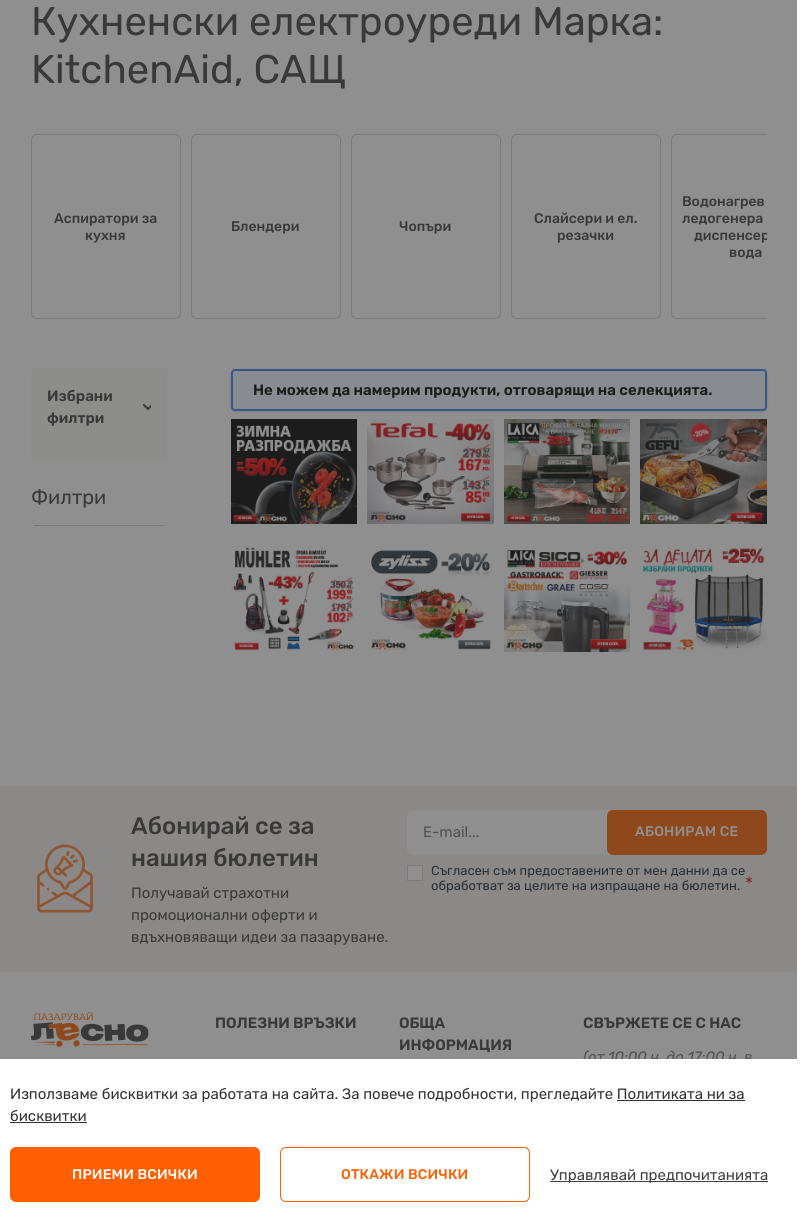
#include <cairo.h>
#include <math.h>
#include <stddef.h>

static cairo_t *ctx;

static void use_color(int r, int g, int b) {
    cairo_set_source_rgb(ctx, r / 255.0, g / 255.0, b / 255.0);
}

static void spaced_text(double x, double y, const char *s, double letter, double word) {
    cairo_move_to(ctx, x, y);
    while (*s) {
        char ch[5] = {0};
        int n = 0;
        do ch[n++] = *s++; while ((*s & 0xC0) == 0x80);
        cairo_show_text(ctx, ch);
        cairo_rel_move_to(ctx, letter + word * (*ch == ' '), 0);
    }
}

static void round_rect(double x, double y, double w, double h, double r) {
    cairo_new_sub_path(ctx);
    cairo_arc(ctx, x + w - r, y + h - r, r, 0, M_PI / 2);
    cairo_arc(ctx, x + r, y + h - r, r, M_PI / 2, M_PI);
    cairo_arc(ctx, x + r, y + r, r, M_PI, 1.5 * M_PI);
    cairo_arc(ctx, x + w - r, y + r, r, 1.5 * M_PI, 2 * M_PI);
    cairo_close_path(ctx);
}

static void shadow(double x, double y, double w, double h, double r, double blur, double alpha) {
    cairo_push_group_with_content(ctx, CAIRO_CONTENT_ALPHA);
    cairo_set_operator(ctx, CAIRO_OPERATOR_SOURCE);
    for (int i = 15; i >= -15 && fmin(w, h) + blur * i / 3 > 0; i -= 2) {
        double e = blur * i / 6;
        cairo_set_source_rgba(ctx, 0, 0, 0, alpha * erfc((i - 1) / 8.5) / 2);
        round_rect(x - e, y - e, w + 2 * e, h + 2 * e, fmax(0, fmin(r + e + blur * .6, fmin(w, h) / 2 + e)));
        cairo_fill(ctx);
    }
    cairo_pattern_t *soft = cairo_pop_group(ctx);
    cairo_mask(ctx, soft);
    cairo_pattern_destroy(soft);
}

static void picture(const char *path, double x, double y, double w, double h) {
    cairo_surface_t *image = cairo_image_surface_create_from_png(path);
    cairo_save(ctx);
    cairo_set_source_surface(ctx, image, x, y);
    cairo_rectangle(ctx, x, y, w, h);
    cairo_fill(ctx);
    cairo_restore(ctx);
    cairo_surface_destroy(image);
}

int main(void) {
    cairo_surface_t *surface = cairo_image_surface_create(CAIRO_FORMAT_RGB24, 812, 1226);
    ctx = cairo_create(surface);
    cairo_font_options_t *options = cairo_font_options_create();
    cairo_font_options_set_hint_metrics(options, CAIRO_HINT_METRICS_OFF);
    cairo_font_options_set_hint_style(options, CAIRO_HINT_STYLE_NONE);
    cairo_set_font_options(ctx, options);
    cairo_set_miter_limit(ctx, 4);
    use_color(255, 255, 255);
    cairo_paint(ctx);
    use_color(143, 143, 143);
    cairo_rectangle(ctx, 0, 0, 797, 1059);
    cairo_fill(ctx);
    cairo_select_font_face(ctx, "Rubik", CAIRO_FONT_SLANT_NORMAL, CAIRO_FONT_WEIGHT_NORMAL);
    cairo_set_font_size(ctx, 40);
    use_color(57, 57, 57);
    cairo_move_to(ctx, 31, 35);
    cairo_show_text(ctx, "Кухненски електроуреди Марка:");
    cairo_move_to(ctx, 31, 83);
    cairo_show_text(ctx, "KitchenAid, САЩ");
    round_rect(31.5, 134.5, 149, 184, 5.5);
    use_color(123, 123, 123);
    cairo_set_line_width(ctx, 1);
    cairo_stroke(ctx);
    cairo_select_font_face(ctx, "Rubik Medium", CAIRO_FONT_SLANT_NORMAL, CAIRO_FONT_WEIGHT_NORMAL);
    cairo_set_font_size(ctx, 14);
    use_color(57, 57, 57);
    cairo_move_to(ctx, 54, 223);
    cairo_show_text(ctx, "Аспиратори за");
    cairo_move_to(ctx, 85, 240);
    cairo_show_text(ctx, "кухня");
    round_rect(191.5, 134.5, 149, 184, 5.5);
    use_color(123, 123, 123);
    cairo_stroke(ctx);
    use_color(57, 57, 57);
    cairo_move_to(ctx, 231, 231);
    cairo_show_text(ctx, "Блендери");
    round_rect(351.5, 134.5, 149, 184, 5.5);
    use_color(123, 123, 123);
    cairo_stroke(ctx);
    use_color(57, 57, 57);
    cairo_move_to(ctx, 399, 231);
    cairo_show_text(ctx, "Чопъри");
    round_rect(511.5, 134.5, 149, 184, 5.5);
    use_color(123, 123, 123);
    cairo_stroke(ctx);
    use_color(57, 57, 57);
    cairo_move_to(ctx, 534, 223);
    cairo_show_text(ctx, "Слайсери и ел.");
    cairo_move_to(ctx, 557, 240);
    cairo_show_text(ctx, "резачки");
    cairo_save(ctx);
    cairo_rectangle(ctx, 31, 134, 736, 195);
    cairo_clip(ctx);
    round_rect(671.5, 134.5, 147, 184, 5.5);
    use_color(123, 123, 123);
    cairo_stroke(ctx);
    cairo_restore(ctx);
    cairo_move_to(ctx, 682, 206);
    cairo_show_text(ctx, "Водонагрев");
    cairo_move_to(ctx, 682, 223);
    cairo_show_text(ctx, "ледогенера");
    cairo_save(ctx);
    cairo_rectangle(ctx, 31, 134, 736, 195);
    cairo_clip(ctx);
    cairo_move_to(ctx, 694, 240);
    cairo_show_text(ctx, "диспенсер");
    cairo_restore(ctx);
    cairo_move_to(ctx, 729, 257);
    cairo_show_text(ctx, "вода");
    use_color(141, 141, 140);
    cairo_rectangle(ctx, 31, 369, 136, 92);
    cairo_fill(ctx);
    cairo_select_font_face(ctx, "Rubik SemiBold", CAIRO_FONT_SLANT_NORMAL, CAIRO_FONT_WEIGHT_NORMAL);
    cairo_set_font_size(ctx, 15);
    use_color(57, 57, 57);
    cairo_move_to(ctx, 47, 401);
    cairo_show_text(ctx, "Избрани");
    cairo_move_to(ctx, 47, 423);
    cairo_show_text(ctx, "филтри");
    cairo_save(ctx);
    cairo_rectangle(ctx, 143, 404, 8, 6);
    cairo_clip(ctx);
    cairo_new_path(ctx);
    cairo_move_to(ctx, 152, 405);
    cairo_line_to(ctx, 148, 409);
    cairo_line_to(ctx, 144, 405);
    cairo_set_line_width(ctx, 2);
    cairo_set_line_cap(ctx, CAIRO_LINE_CAP_ROUND);
    cairo_set_line_join(ctx, CAIRO_LINE_JOIN_ROUND);
    cairo_stroke(ctx);
    cairo_restore(ctx);
    use_color(123, 123, 123);
    cairo_rectangle(ctx, 34, 525, 130, 1);
    cairo_fill(ctx);
    cairo_select_font_face(ctx, "Rubik", CAIRO_FONT_SLANT_NORMAL, CAIRO_FONT_WEIGHT_NORMAL);
    cairo_set_font_size(ctx, 20);
    use_color(57, 57, 57);
    cairo_move_to(ctx, 31, 504);
    cairo_show_text(ctx, "Филтри");
    use_color(28, 28, 28);
    shadow(232, 371, 534, 40, 3, 1, 0.1);
    shadow(231, 370, 536, 42, 4, 1.5, 0.1);
    use_color(136, 139, 143);
    round_rect(232, 370, 534, 40, 3);
    cairo_fill_preserve(ctx);
    use_color(55, 87, 139);
    cairo_set_line_width(ctx, 2);
    cairo_stroke(ctx);
    cairo_select_font_face(ctx, "Rubik SemiBold", CAIRO_FONT_SLANT_NORMAL, CAIRO_FONT_WEIGHT_NORMAL);
    cairo_set_font_size(ctx, 15);
    use_color(28, 28, 28);
    cairo_move_to(ctx, 253, 395);
    cairo_show_text(ctx, "Не можем да намерим продукти, отговарящи на селекцията.");
    picture("img1.png", 231, 419, 126, 105);
    picture("img2.png", 367, 419, 127, 105);
    picture("img3.png", 504, 419, 126, 105);
    picture("img4.png", 640, 419, 127, 105);
    picture("img5.png", 231, 547, 123, 104);
    picture("img6.png", 371, 550, 120, 100);
    picture("img7.png", 504, 550, 126, 102);
    picture("img8.png", 642, 548, 125, 103);
    use_color(138, 137, 135);
    cairo_rectangle(ctx, 0, 786, 797, 186);
    cairo_fill(ctx);
    picture("img9.png", 37, 844, 56, 69);
    cairo_select_font_face(ctx, "Rubik Medium", CAIRO_FONT_SLANT_NORMAL, CAIRO_FONT_WEIGHT_NORMAL);
    cairo_set_font_size(ctx, 24);
    use_color(57, 57, 57);
    cairo_move_to(ctx, 131, 834);
    cairo_show_text(ctx, "Абонирай се за");
    cairo_move_to(ctx, 131, 866);
    cairo_show_text(ctx, "нашия бюлетин");
    cairo_select_font_face(ctx, "Rubik", CAIRO_FONT_SLANT_NORMAL, CAIRO_FONT_WEIGHT_NORMAL);
    cairo_set_font_size(ctx, 15);
    cairo_move_to(ctx, 131, 898);
    cairo_show_text(ctx, "Получавай страхотни");
    cairo_move_to(ctx, 131, 920);
    cairo_show_text(ctx, "промоционални оферти и");
    cairo_move_to(ctx, 131, 942);
    cairo_show_text(ctx, "вдъхновяващи идеи за пазаруване.");
    use_color(143, 143, 143);
    round_rect(407, 810, 360, 45, 6);
    cairo_fill(ctx);
    use_color(81, 81, 81);
    cairo_move_to(ctx, 423, 837);
    cairo_show_text(ctx, "E-mail...");
    use_color(143, 71, 28);
    round_rect(607, 810, 160, 45, 6);
    cairo_fill(ctx);
    cairo_select_font_face(ctx, "Rubik Medium", CAIRO_FONT_SLANT_NORMAL, CAIRO_FONT_WEIGHT_NORMAL);
    cairo_set_font_size(ctx, 14);
    use_color(143, 143, 143);
    spaced_text(635, 836, "АБОНИРАМ СЕ", 0.2, 0);
    cairo_rectangle(ctx, 407.5, 865.5, 15, 15);
    cairo_fill_preserve(ctx);
    use_color(123, 123, 123);
    cairo_set_line_width(ctx, 1);
    cairo_stroke(ctx);
    cairo_select_font_face(ctx, "Rubik", CAIRO_FONT_SLANT_NORMAL, CAIRO_FONT_WEIGHT_NORMAL);
    cairo_set_font_size(ctx, 13);
    use_color(42, 47, 53);
    cairo_move_to(ctx, 431, 875);
    cairo_show_text(ctx, "Съгласен съм предоставените от мен данни да се");
    cairo_move_to(ctx, 431, 890);
    cairo_show_text(ctx, "обработват за целите на изпращане на бюлетин.");
    picture("img10.png", 745, 876, 8, 8);
    picture("img11.png", 31, 1012, 118, 35);
    cairo_select_font_face(ctx, "Rubik SemiBold", CAIRO_FONT_SLANT_NORMAL, CAIRO_FONT_WEIGHT_NORMAL);
    cairo_set_font_size(ctx, 15);
    use_color(57, 57, 57);
    cairo_move_to(ctx, 215, 1028);
    cairo_show_text(ctx, "ПОЛЕЗНИ ВРЪЗКИ");
    cairo_move_to(ctx, 399, 1028);
    cairo_show_text(ctx, "ОБЩА");
    cairo_move_to(ctx, 399, 1050);
    cairo_show_text(ctx, "ИНФОРМАЦИЯ");
    cairo_move_to(ctx, 583, 1028);
    cairo_show_text(ctx, "СВЪРЖЕТЕ СЕ С НАС");
    cairo_select_font_face(ctx, "Rubik", CAIRO_FONT_SLANT_ITALIC, CAIRO_FONT_WEIGHT_NORMAL);
    use_color(81, 81, 81);
    cairo_move_to(ctx, 583, 1062);
    cairo_show_text(ctx, "(от 10:00 ч. до 17:00 ч. в");
    use_color(255, 255, 255);
    cairo_rectangle(ctx, 582, 1059, 169, 6);
    cairo_fill(ctx);
    cairo_select_font_face(ctx, "Rubik", CAIRO_FONT_SLANT_NORMAL, CAIRO_FONT_WEIGHT_NORMAL);
    use_color(51, 51, 51);
    cairo_move_to(ctx, 10, 1099);
    cairo_show_text(ctx, "Използваме бисквитки за работата на сайта. За повече подробности, прегледайте Политиката ни за");
    cairo_move_to(ctx, 10, 1121);
    cairo_show_text(ctx, "бисквитки");
    cairo_rectangle(ctx, 617, 1100, 128, 1);
    cairo_fill(ctx);
    cairo_rectangle(ctx, 10, 1122, 77, 1);
    cairo_fill(ctx);
    use_color(255, 95, 0);
    round_rect(10, 1147, 250, 55, 6);
    cairo_fill(ctx);
    cairo_select_font_face(ctx, "Rubik Medium", CAIRO_FONT_SLANT_NORMAL, CAIRO_FONT_WEIGHT_NORMAL);
    cairo_set_font_size(ctx, 14);
    use_color(255, 255, 255);
    spaced_text(72, 1179, "ПРИЕМИ ВСИЧКИ", 0.2, 0);
    round_rect(280.5, 1147.5, 249, 54, 5.5);
    use_color(255, 95, 0);
    cairo_stroke(ctx);
    spaced_text(341, 1179, "ОТКАЖИ ВСИЧКИ", 0.2, 0);
    use_color(64, 64, 65);
    cairo_rectangle(ctx, 550, 1181, 218, 1);
    cairo_fill(ctx);
    cairo_select_font_face(ctx, "Rubik", CAIRO_FONT_SLANT_NORMAL, CAIRO_FONT_WEIGHT_NORMAL);
    cairo_set_font_size(ctx, 15);
    cairo_move_to(ctx, 550, 1180);
    cairo_show_text(ctx, "Управлявай предпочитанията");
    cairo_surface_write_to_png(surface, "result.png");
    cairo_font_options_destroy(options);
    cairo_destroy(ctx);
    cairo_surface_destroy(surface);
    return 0;
}
